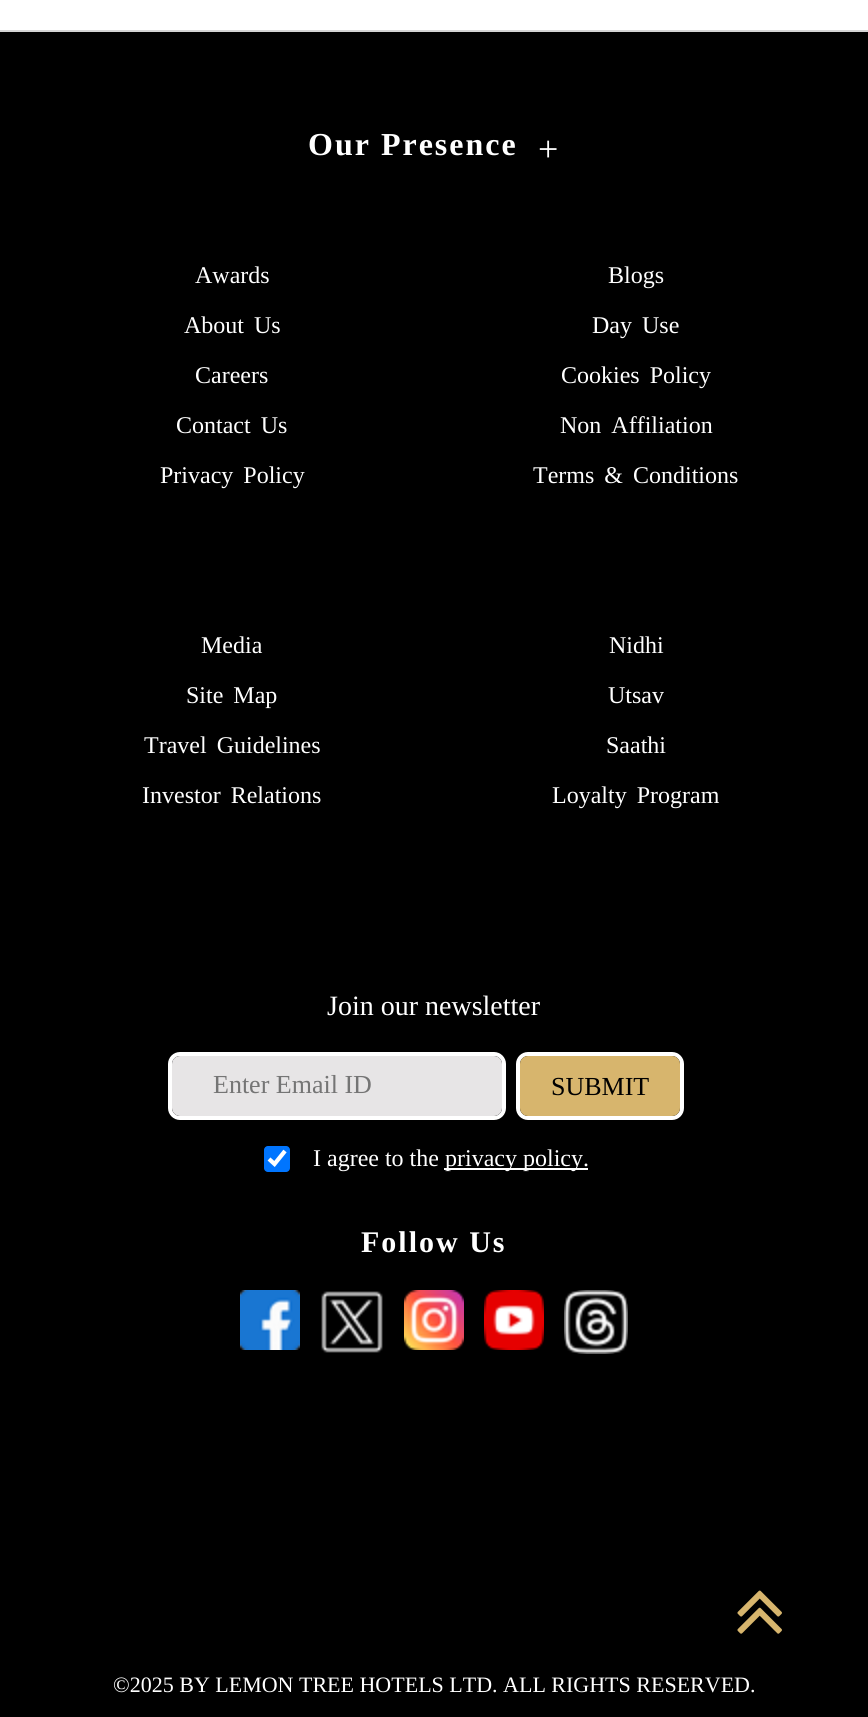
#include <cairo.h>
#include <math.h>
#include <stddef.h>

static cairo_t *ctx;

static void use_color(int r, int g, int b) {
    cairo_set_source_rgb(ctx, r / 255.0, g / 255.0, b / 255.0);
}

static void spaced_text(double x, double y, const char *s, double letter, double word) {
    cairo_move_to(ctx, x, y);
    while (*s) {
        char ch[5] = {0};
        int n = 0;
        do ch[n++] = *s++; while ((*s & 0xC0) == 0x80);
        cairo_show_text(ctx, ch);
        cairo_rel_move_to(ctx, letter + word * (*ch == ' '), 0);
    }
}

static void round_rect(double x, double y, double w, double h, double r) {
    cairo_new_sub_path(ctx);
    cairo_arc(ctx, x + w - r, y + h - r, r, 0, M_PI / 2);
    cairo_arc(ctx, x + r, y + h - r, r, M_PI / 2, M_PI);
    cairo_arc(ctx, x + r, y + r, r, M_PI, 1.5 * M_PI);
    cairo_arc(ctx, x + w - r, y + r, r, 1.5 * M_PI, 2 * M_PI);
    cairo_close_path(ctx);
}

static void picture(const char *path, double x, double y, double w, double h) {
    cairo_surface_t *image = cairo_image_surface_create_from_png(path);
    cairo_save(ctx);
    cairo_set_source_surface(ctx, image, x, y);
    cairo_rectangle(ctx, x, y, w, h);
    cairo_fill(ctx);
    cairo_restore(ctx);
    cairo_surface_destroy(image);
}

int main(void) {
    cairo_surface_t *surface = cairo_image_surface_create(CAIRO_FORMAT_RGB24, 868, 1717);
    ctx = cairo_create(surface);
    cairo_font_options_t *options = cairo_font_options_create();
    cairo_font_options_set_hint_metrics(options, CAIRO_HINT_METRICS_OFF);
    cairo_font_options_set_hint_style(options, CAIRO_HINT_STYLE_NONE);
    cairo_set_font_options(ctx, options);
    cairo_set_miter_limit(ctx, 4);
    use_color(255, 255, 255);
    cairo_paint(ctx);
    use_color(213, 213, 213);
    cairo_rectangle(ctx, 0, 30, 868, 2);
    cairo_fill(ctx);
    use_color(0, 0, 0);
    cairo_rectangle(ctx, 0, 32, 868, 1685);
    cairo_fill(ctx);
    cairo_select_font_face(ctx, "Liberation Serif", CAIRO_FONT_SLANT_NORMAL, CAIRO_FONT_WEIGHT_BOLD);
    cairo_set_font_size(ctx, 32);
    use_color(255, 255, 255);
    spaced_text(308, 155, "Our Presence", 2, 0);
    cairo_select_font_face(ctx, "Liberation Serif", CAIRO_FONT_SLANT_NORMAL, CAIRO_FONT_WEIGHT_NORMAL);
    cairo_set_font_size(ctx, 36);
    spaced_text(538, 161, "+", 2, 0);
    cairo_set_font_size(ctx, 24);
    cairo_move_to(ctx, 195, 283);
    cairo_show_text(ctx, "Awards");
    spaced_text(184, 333, "About Us", 0, 4);
    cairo_move_to(ctx, 195, 383);
    cairo_show_text(ctx, "Careers");
    spaced_text(176, 433, "Contact Us", 0, 4);
    spaced_text(160, 483, "Privacy Policy", 0, 4);
    cairo_move_to(ctx, 608, 283);
    cairo_show_text(ctx, "Blogs");
    spaced_text(592, 333, "Day Use", 0, 4);
    spaced_text(561, 383, "Cookies Policy", 0, 4);
    spaced_text(560, 433, "Non Affiliation", 0, 4);
    spaced_text(533, 483, "Terms & Conditions", 0, 4);
    cairo_move_to(ctx, 201, 653);
    cairo_show_text(ctx, "Media");
    spaced_text(186, 703, "Site Map", 0, 4);
    spaced_text(144, 753, "Travel Guidelines", 0, 4);
    spaced_text(142, 803, "Investor Relations", 0, 4);
    cairo_move_to(ctx, 609, 653);
    cairo_show_text(ctx, "Nidhi");
    cairo_move_to(ctx, 608, 703);
    cairo_show_text(ctx, "Utsav");
    cairo_move_to(ctx, 606, 753);
    cairo_show_text(ctx, "Saathi");
    spaced_text(552, 803, "Loyalty Program", 0, 4);
    cairo_set_font_size(ctx, 28);
    cairo_move_to(ctx, 327, 1015);
    cairo_show_text(ctx, "Join our newsletter");
    round_rect(170, 1054, 334, 64, 10);
    cairo_set_line_width(ctx, 4);
    cairo_stroke(ctx);
    use_color(231, 229, 230);
    round_rect(172, 1056, 330, 60, 8);
    cairo_fill(ctx);
    cairo_set_font_size(ctx, 26);
    use_color(117, 117, 117);
    cairo_move_to(ctx, 213, 1093);
    cairo_show_text(ctx, "Enter Email ID");
    round_rect(518, 1054, 164, 64, 10);
    use_color(255, 255, 255);
    cairo_stroke(ctx);
    use_color(215, 181, 109);
    round_rect(520, 1056, 160, 60, 8);
    cairo_fill(ctx);
    use_color(0, 0, 0);
    cairo_move_to(ctx, 551, 1095);
    cairo_show_text(ctx, "SUBMIT");
    use_color(0, 117, 255);
    round_rect(264, 1146, 26, 26, 4);
    cairo_fill(ctx);
    cairo_new_path(ctx);
    cairo_move_to(ctx, 269, 1159);
    cairo_line_to(ctx, 274.5, 1164);
    cairo_line_to(ctx, 285, 1151);
    use_color(255, 255, 255);
    cairo_set_line_width(ctx, 4.2);
    cairo_stroke(ctx);
    cairo_set_font_size(ctx, 24);
    cairo_move_to(ctx, 313, 1166);
    cairo_show_text(ctx, "I agree to the");
    cairo_rectangle(ctx, 444, 1168, 144, 2);
    cairo_fill(ctx);
    cairo_move_to(ctx, 445, 1166);
    cairo_show_text(ctx, "privacy policy.");
    cairo_select_font_face(ctx, "Liberation Serif", CAIRO_FONT_SLANT_NORMAL, CAIRO_FONT_WEIGHT_BOLD);
    cairo_set_font_size(ctx, 30);
    spaced_text(361, 1252, "Follow Us", 2, 0);
    picture("img1.png", 240, 1290, 60, 60);
    picture("img2.png", 321, 1291, 62, 62);
    picture("img3.png", 404, 1290, 60, 60);
    picture("img4.png", 484, 1290, 60, 60);
    picture("img5.png", 564, 1290, 64, 64);
    cairo_select_font_face(ctx, "Liberation Serif", CAIRO_FONT_SLANT_NORMAL, CAIRO_FONT_WEIGHT_NORMAL);
    cairo_set_font_size(ctx, 22);
    cairo_move_to(ctx, 113, 1692);
    cairo_show_text(ctx, "©2025 BY LEMON TREE HOTELS LTD. ALL RIGHTS RESERVED.");
    picture("img6.png", 737, 1590, 45, 44);
    cairo_surface_write_to_png(surface, "result.png");
    cairo_font_options_destroy(options);
    cairo_destroy(ctx);
    cairo_surface_destroy(surface);
    return 0;
}
